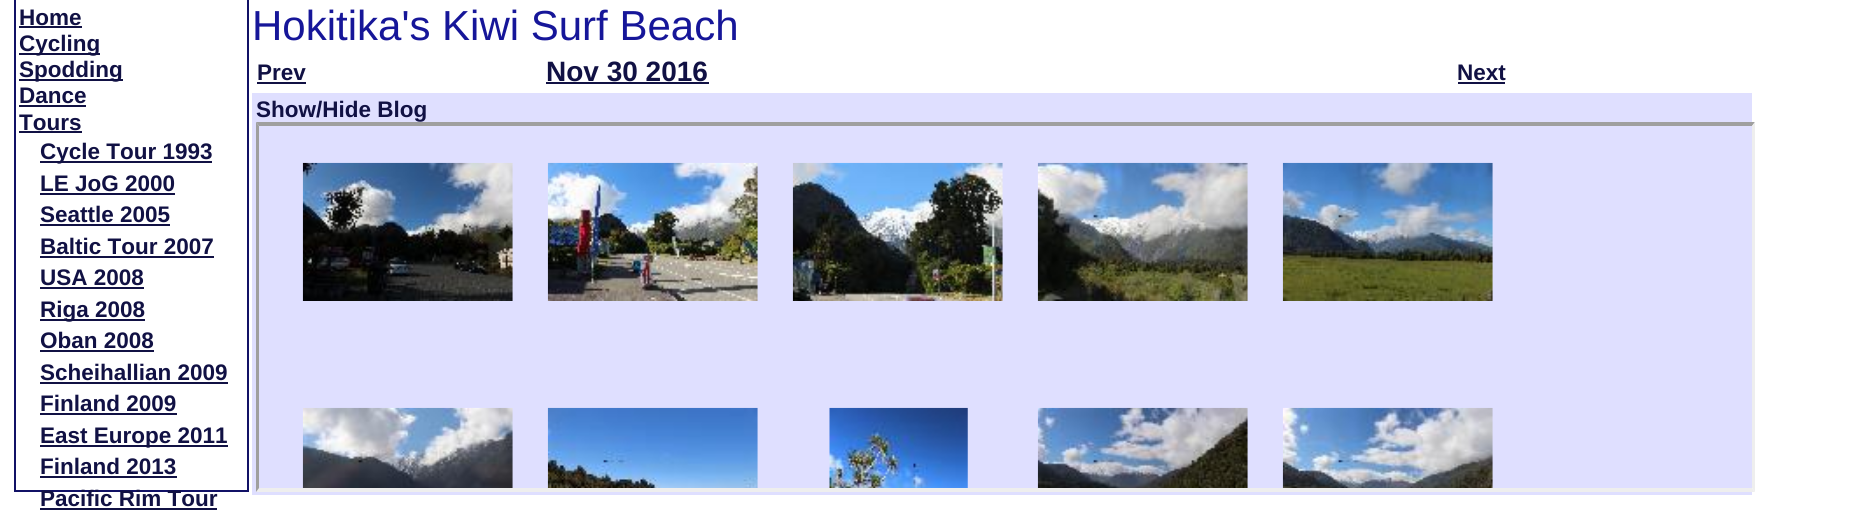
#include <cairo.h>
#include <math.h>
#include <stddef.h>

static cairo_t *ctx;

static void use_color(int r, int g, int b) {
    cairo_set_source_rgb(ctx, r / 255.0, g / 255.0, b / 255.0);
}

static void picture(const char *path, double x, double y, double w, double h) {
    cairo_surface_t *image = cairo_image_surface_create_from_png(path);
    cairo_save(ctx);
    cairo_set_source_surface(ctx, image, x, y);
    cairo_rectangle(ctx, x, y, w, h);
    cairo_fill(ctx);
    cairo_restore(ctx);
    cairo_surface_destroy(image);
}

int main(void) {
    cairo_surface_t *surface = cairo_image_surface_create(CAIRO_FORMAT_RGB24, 1865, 511);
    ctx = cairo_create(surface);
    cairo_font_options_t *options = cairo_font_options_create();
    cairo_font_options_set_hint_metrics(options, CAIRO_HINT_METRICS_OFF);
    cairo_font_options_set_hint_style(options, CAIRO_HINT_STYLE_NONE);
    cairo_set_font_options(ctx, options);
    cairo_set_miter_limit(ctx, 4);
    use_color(255, 255, 255);
    cairo_paint(ctx);
    cairo_rectangle(ctx, 15, -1, 233, 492);
    use_color(17, 17, 102);
    cairo_stroke(ctx);
    cairo_select_font_face(ctx, "Liberation Sans", CAIRO_FONT_SLANT_NORMAL, CAIRO_FONT_WEIGHT_BOLD);
    cairo_set_font_size(ctx, 22.5);
    use_color(17, 17, 68);
    cairo_move_to(ctx, 19, 25);
    cairo_show_text(ctx, "Home");
    cairo_rectangle(ctx, 19, 26, 63, 2);
    cairo_fill(ctx);
    cairo_rectangle(ctx, 19, 53, 81, 2);
    cairo_fill(ctx);
    cairo_move_to(ctx, 19, 51);
    cairo_show_text(ctx, "Cycling");
    cairo_rectangle(ctx, 19, 79, 104, 2);
    cairo_fill(ctx);
    cairo_move_to(ctx, 19, 77);
    cairo_show_text(ctx, "Spodding");
    cairo_move_to(ctx, 19, 103);
    cairo_show_text(ctx, "Dance");
    cairo_rectangle(ctx, 19, 105, 67, 2);
    cairo_fill(ctx);
    cairo_move_to(ctx, 19, 130);
    cairo_show_text(ctx, "Tours");
    cairo_rectangle(ctx, 19, 131, 63, 2);
    cairo_fill(ctx);
    cairo_rectangle(ctx, 40, 161, 172, 2);
    cairo_fill(ctx);
    cairo_move_to(ctx, 40, 159);
    cairo_show_text(ctx, "Cycle Tour 1993");
    cairo_move_to(ctx, 40, 191);
    cairo_show_text(ctx, "LE JoG 2000");
    cairo_rectangle(ctx, 40, 193, 135, 2);
    cairo_fill(ctx);
    cairo_move_to(ctx, 40, 222);
    cairo_show_text(ctx, "Seattle 2005");
    cairo_rectangle(ctx, 40, 224, 130, 2);
    cairo_fill(ctx);
    cairo_move_to(ctx, 40, 254);
    cairo_show_text(ctx, "Baltic Tour 2007");
    cairo_rectangle(ctx, 40, 256, 174, 2);
    cairo_fill(ctx);
    cairo_move_to(ctx, 40, 285);
    cairo_show_text(ctx, "USA 2008");
    cairo_rectangle(ctx, 40, 287, 104, 2);
    cairo_fill(ctx);
    cairo_rectangle(ctx, 40, 319, 105, 2);
    cairo_fill(ctx);
    cairo_move_to(ctx, 40, 317);
    cairo_show_text(ctx, "Riga 2008");
    cairo_move_to(ctx, 40, 348);
    cairo_show_text(ctx, "Oban 2008");
    cairo_rectangle(ctx, 40, 350, 114, 2);
    cairo_fill(ctx);
    cairo_move_to(ctx, 40, 380);
    cairo_show_text(ctx, "Scheihallian 2009");
    cairo_rectangle(ctx, 40, 382, 188, 2);
    cairo_fill(ctx);
    cairo_move_to(ctx, 40, 411);
    cairo_show_text(ctx, "Finland 2009");
    cairo_rectangle(ctx, 40, 413, 137, 2);
    cairo_fill(ctx);
    cairo_rectangle(ctx, 40, 445, 188, 2);
    cairo_fill(ctx);
    cairo_move_to(ctx, 40, 443);
    cairo_show_text(ctx, "East Europe 2011");
    cairo_move_to(ctx, 40, 474);
    cairo_show_text(ctx, "Finland 2013");
    cairo_rectangle(ctx, 40, 476, 137, 2);
    cairo_fill(ctx);
    cairo_move_to(ctx, 40, 506);
    cairo_show_text(ctx, "Pacific Rim Tour");
    cairo_rectangle(ctx, 40, 508, 177, 2);
    cairo_fill(ctx);
    cairo_select_font_face(ctx, "Liberation Sans", CAIRO_FONT_SLANT_NORMAL, CAIRO_FONT_WEIGHT_NORMAL);
    cairo_set_font_size(ctx, 42);
    use_color(22, 22, 153);
    cairo_move_to(ctx, 252, 40);
    cairo_show_text(ctx, "Hokitika's Kiwi Surf Beach");
    cairo_select_font_face(ctx, "Liberation Sans", CAIRO_FONT_SLANT_NORMAL, CAIRO_FONT_WEIGHT_BOLD);
    cairo_set_font_size(ctx, 22.5);
    use_color(17, 17, 68);
    cairo_move_to(ctx, 257, 80);
    cairo_show_text(ctx, "Prev");
    cairo_rectangle(ctx, 257, 82, 49, 2);
    cairo_fill(ctx);
    cairo_set_font_size(ctx, 28);
    cairo_move_to(ctx, 546, 81);
    cairo_show_text(ctx, "Nov 30 2016");
    cairo_rectangle(ctx, 546, 82, 163, 2);
    cairo_fill(ctx);
    cairo_set_font_size(ctx, 22.5);
    cairo_move_to(ctx, 1457, 80);
    cairo_show_text(ctx, "Next");
    cairo_rectangle(ctx, 1458, 82, 47, 2);
    cairo_fill(ctx);
    use_color(223, 223, 255);
    cairo_rectangle(ctx, 252, 93, 1500, 402);
    cairo_fill(ctx);
    use_color(17, 17, 68);
    cairo_move_to(ctx, 256, 117);
    cairo_show_text(ctx, "Show/Hide Blog");
    use_color(159, 159, 159);
    cairo_new_path(ctx);
    cairo_move_to(ctx, 256, 122);
    cairo_line_to(ctx, 1755, 122);
    cairo_line_to(ctx, 1752, 126);
    cairo_line_to(ctx, 259, 126);
    cairo_close_path(ctx);
    cairo_fill(ctx);
    use_color(238, 238, 238);
    cairo_new_path(ctx);
    cairo_move_to(ctx, 1755, 122);
    cairo_line_to(ctx, 1755, 492);
    cairo_line_to(ctx, 1752, 488);
    cairo_line_to(ctx, 1752, 126);
    cairo_close_path(ctx);
    cairo_fill(ctx);
    cairo_new_path(ctx);
    cairo_move_to(ctx, 1755, 492);
    cairo_line_to(ctx, 256, 492);
    cairo_line_to(ctx, 259, 488);
    cairo_line_to(ctx, 1752, 488);
    cairo_close_path(ctx);
    cairo_fill(ctx);
    use_color(159, 159, 159);
    cairo_new_path(ctx);
    cairo_move_to(ctx, 256, 492);
    cairo_line_to(ctx, 256, 122);
    cairo_line_to(ctx, 259, 126);
    cairo_line_to(ctx, 259, 488);
    cairo_close_path(ctx);
    cairo_fill(ctx);
    picture("img1.png", 302, 162, 1191, 326);
    cairo_surface_write_to_png(surface, "result.png");
    cairo_font_options_destroy(options);
    cairo_destroy(ctx);
    cairo_surface_destroy(surface);
    return 0;
}
